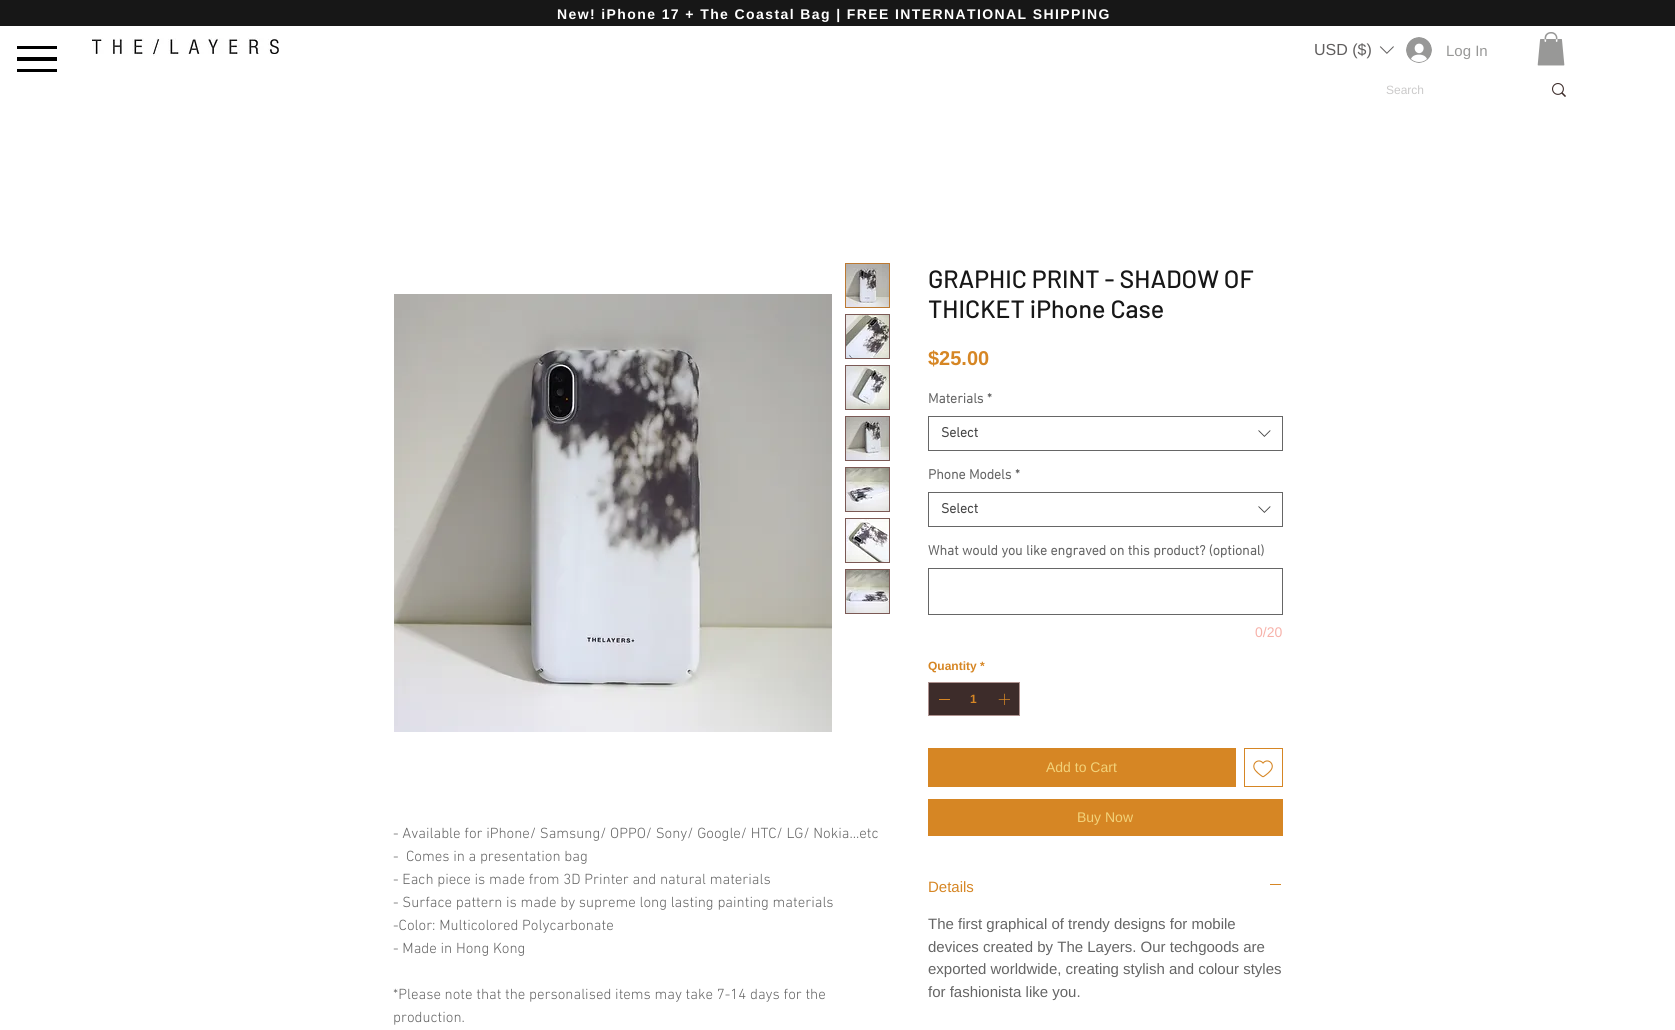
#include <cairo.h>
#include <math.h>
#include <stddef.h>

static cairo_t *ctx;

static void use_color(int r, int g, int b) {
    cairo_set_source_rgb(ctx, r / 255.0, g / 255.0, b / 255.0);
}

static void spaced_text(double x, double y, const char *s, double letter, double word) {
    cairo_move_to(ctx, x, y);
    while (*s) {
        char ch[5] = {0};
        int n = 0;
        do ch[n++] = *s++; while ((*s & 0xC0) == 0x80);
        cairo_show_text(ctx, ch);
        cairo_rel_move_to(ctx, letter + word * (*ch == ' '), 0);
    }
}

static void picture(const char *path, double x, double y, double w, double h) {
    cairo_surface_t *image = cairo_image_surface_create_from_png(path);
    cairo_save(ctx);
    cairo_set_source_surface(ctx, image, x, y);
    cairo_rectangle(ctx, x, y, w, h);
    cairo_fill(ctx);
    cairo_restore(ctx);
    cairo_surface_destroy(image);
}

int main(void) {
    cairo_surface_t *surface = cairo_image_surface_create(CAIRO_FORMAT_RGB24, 1675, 1030);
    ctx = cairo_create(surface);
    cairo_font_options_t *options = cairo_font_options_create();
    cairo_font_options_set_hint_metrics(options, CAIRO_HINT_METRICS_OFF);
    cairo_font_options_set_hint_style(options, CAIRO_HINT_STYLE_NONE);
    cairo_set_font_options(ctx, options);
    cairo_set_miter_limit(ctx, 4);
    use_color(255, 255, 255);
    cairo_paint(ctx);
    use_color(23, 23, 23);
    cairo_rectangle(ctx, 0, 0, 1675, 26);
    cairo_fill(ctx);
    cairo_select_font_face(ctx, "Liberation Sans", CAIRO_FONT_SLANT_NORMAL, CAIRO_FONT_WEIGHT_BOLD);
    cairo_set_font_size(ctx, 14);
    use_color(255, 255, 255);
    spaced_text(557, 19, "New! iPhone 17 + The Coastal Bag | FREE INTERNATIONAL SHIPPING", 1.4, 0);
    use_color(0, 0, 0);
    cairo_rectangle(ctx, 17, 69, 40, 3);
    cairo_fill(ctx);
    cairo_rectangle(ctx, 17, 46, 40, 3);
    cairo_fill(ctx);
    cairo_rectangle(ctx, 17, 57, 40, 4);
    cairo_fill(ctx);
    picture("img1.png", 92, 38, 187, 18);
    cairo_select_font_face(ctx, "Liberation Sans", CAIRO_FONT_SLANT_NORMAL, CAIRO_FONT_WEIGHT_NORMAL);
    cairo_set_font_size(ctx, 16);
    use_color(96, 94, 94);
    cairo_move_to(ctx, 1314, 55);
    cairo_show_text(ctx, "USD ($)");
    picture("img2.png", 1379, 46, 15, 8);
    picture("img3.png", 1406, 37, 26, 26);
    cairo_set_font_size(ctx, 15);
    use_color(152, 152, 151);
    cairo_move_to(ctx, 1446, 56);
    cairo_show_text(ctx, "Log In");
    picture("img4.png", 1537, 32, 28, 34);
    cairo_set_font_size(ctx, 12);
    use_color(203, 202, 202);
    cairo_move_to(ctx, 1386, 94);
    cairo_show_text(ctx, "Search");
    picture("img5.png", 1552, 83, 14, 14);
    picture("img6.png", 394, 294, 438, 438);
    cairo_rectangle(ctx, 845.5, 263.5, 44, 44);
    use_color(188, 121, 50);
    cairo_set_line_width(ctx, 1);
    cairo_stroke(ctx);
    picture("img7.png", 846, 264, 43, 43);
    use_color(123, 89, 85);
    cairo_rectangle(ctx, 845, 314, 45, 45);
    cairo_fill(ctx);
    picture("img8.png", 846, 315, 43, 43);
    cairo_rectangle(ctx, 845, 365, 45, 45);
    cairo_fill(ctx);
    picture("img9.png", 846, 366, 43, 43);
    cairo_rectangle(ctx, 845, 416, 45, 45);
    cairo_fill(ctx);
    picture("img10.png", 846, 417, 43, 43);
    cairo_rectangle(ctx, 845, 467, 45, 45);
    cairo_fill(ctx);
    picture("img11.png", 846, 468, 43, 43);
    cairo_rectangle(ctx, 845, 518, 45, 45);
    cairo_fill(ctx);
    picture("img12.png", 846, 519, 43, 43);
    cairo_rectangle(ctx, 845, 569, 45, 45);
    cairo_fill(ctx);
    picture("img13.png", 846, 570, 43, 43);
    cairo_select_font_face(ctx, "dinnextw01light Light", CAIRO_FONT_SLANT_NORMAL, CAIRO_FONT_WEIGHT_NORMAL);
    cairo_set_font_size(ctx, 15);
    use_color(101, 101, 101);
    cairo_move_to(ctx, 393, 838);
    cairo_show_text(ctx, "- Available for iPhone/ Samsung/ OPPO/ Sony/ Google/ HTC/ LG/ Nokia...etc");
    cairo_move_to(ctx, 393, 861);
    cairo_show_text(ctx, "-  Comes in a presentation bag");
    cairo_move_to(ctx, 393, 884);
    cairo_show_text(ctx, "- Each piece is made from 3D Printer and natural materials");
    cairo_move_to(ctx, 393, 907);
    cairo_show_text(ctx, "- Surface pattern is made by supreme long lasting painting materials");
    cairo_move_to(ctx, 393, 930);
    cairo_show_text(ctx, "-Color: Multicolored Polycarbonate");
    cairo_move_to(ctx, 393, 953);
    cairo_show_text(ctx, "- Made in Hong Kong");
    cairo_move_to(ctx, 393, 999);
    cairo_show_text(ctx, "*Please note that the personalised items may take 7-14 days for the");
    cairo_move_to(ctx, 393, 1022);
    cairo_show_text(ctx, "production.");
    cairo_select_font_face(ctx, "Barlow Medium", CAIRO_FONT_SLANT_NORMAL, CAIRO_FONT_WEIGHT_NORMAL);
    cairo_set_font_size(ctx, 25);
    use_color(23, 23, 23);
    cairo_move_to(ctx, 928, 288);
    cairo_show_text(ctx, "GRAPHIC PRINT - SHADOW OF");
    cairo_move_to(ctx, 928, 318);
    cairo_show_text(ctx, "THICKET iPhone Case");
    cairo_select_font_face(ctx, "Liberation Sans", CAIRO_FONT_SLANT_NORMAL, CAIRO_FONT_WEIGHT_BOLD);
    cairo_set_font_size(ctx, 20);
    use_color(214, 134, 36);
    cairo_move_to(ctx, 928, 365);
    cairo_show_text(ctx, "$25.00");
    cairo_select_font_face(ctx, "dinnextw01light", CAIRO_FONT_SLANT_NORMAL, CAIRO_FONT_WEIGHT_BOLD);
    cairo_set_font_size(ctx, 14);
    use_color(101, 101, 101);
    cairo_move_to(ctx, 928, 403);
    cairo_show_text(ctx, "Materials");
    cairo_move_to(ctx, 987, 403);
    cairo_show_text(ctx, "*");
    cairo_rectangle(ctx, 928.5, 416.5, 354, 34);
    use_color(102, 102, 102);
    cairo_stroke(ctx);
    use_color(68, 68, 68);
    cairo_move_to(ctx, 941, 437);
    cairo_show_text(ctx, "Select");
    picture("img14.png", 1258, 430, 13, 7);
    use_color(101, 101, 101);
    cairo_move_to(ctx, 928, 479);
    cairo_show_text(ctx, "Phone Models");
    cairo_move_to(ctx, 1015, 479);
    cairo_show_text(ctx, "*");
    cairo_rectangle(ctx, 928.5, 492.5, 354, 34);
    use_color(102, 102, 102);
    cairo_stroke(ctx);
    use_color(68, 68, 68);
    cairo_move_to(ctx, 941, 513);
    cairo_show_text(ctx, "Select");
    picture("img14.png", 1258, 506, 13, 7);
    use_color(101, 101, 101);
    cairo_move_to(ctx, 928, 555);
    cairo_show_text(ctx, "What would you like engraved on this product? (optional)");
    cairo_rectangle(ctx, 928.5, 568.5, 354, 46);
    use_color(102, 102, 102);
    cairo_stroke(ctx);
    cairo_select_font_face(ctx, "Liberation Sans", CAIRO_FONT_SLANT_NORMAL, CAIRO_FONT_WEIGHT_NORMAL);
    use_color(247, 178, 170);
    cairo_move_to(ctx, 1255, 637);
    cairo_show_text(ctx, "0/20");
    cairo_select_font_face(ctx, "Liberation Sans", CAIRO_FONT_SLANT_NORMAL, CAIRO_FONT_WEIGHT_BOLD);
    cairo_set_font_size(ctx, 12);
    use_color(214, 134, 36);
    cairo_move_to(ctx, 928, 670);
    cairo_show_text(ctx, "Quantity");
    cairo_move_to(ctx, 980, 670);
    cairo_show_text(ctx, "*");
    use_color(61, 44, 42);
    cairo_rectangle(ctx, 928.5, 682.5, 91, 33);
    cairo_fill_preserve(ctx);
    use_color(175, 147, 144);
    cairo_stroke(ctx);
    use_color(214, 134, 36);
    cairo_rectangle(ctx, 939, 699, 11, 1);
    cairo_fill(ctx);
    cairo_move_to(ctx, 970, 703);
    cairo_show_text(ctx, "1");
    picture("img15.png", 998, 693, 12, 12);
    cairo_rectangle(ctx, 928, 748, 308, 39);
    cairo_fill(ctx);
    cairo_select_font_face(ctx, "Liberation Sans", CAIRO_FONT_SLANT_NORMAL, CAIRO_FONT_WEIGHT_NORMAL);
    cairo_set_font_size(ctx, 14);
    use_color(242, 210, 121);
    cairo_move_to(ctx, 1046, 772);
    cairo_show_text(ctx, "Add to Cart");
    cairo_rectangle(ctx, 1244.5, 748.5, 38, 38);
    use_color(214, 134, 36);
    cairo_stroke(ctx);
    picture("img16.png", 1253, 760, 20, 18);
    cairo_rectangle(ctx, 928, 799, 355, 37);
    cairo_fill(ctx);
    use_color(242, 210, 121);
    cairo_move_to(ctx, 1077, 822);
    cairo_show_text(ctx, "Buy Now");
    cairo_set_font_size(ctx, 15);
    use_color(214, 134, 36);
    cairo_move_to(ctx, 928, 892);
    cairo_show_text(ctx, "Details");
    cairo_rectangle(ctx, 1270, 884, 11, 1);
    cairo_fill(ctx);
    use_color(101, 101, 101);
    cairo_move_to(ctx, 928, 929);
    cairo_show_text(ctx, "The first graphical of trendy designs for mobile");
    cairo_move_to(ctx, 928, 952);
    cairo_show_text(ctx, "devices created by The Layers. Our techgoods are");
    cairo_move_to(ctx, 928, 974);
    cairo_show_text(ctx, "exported worldwide, creating stylish and colour styles");
    cairo_move_to(ctx, 928, 997);
    cairo_show_text(ctx, "for fashionista like you.");
    cairo_surface_write_to_png(surface, "result.png");
    cairo_font_options_destroy(options);
    cairo_destroy(ctx);
    cairo_surface_destroy(surface);
    return 0;
}
